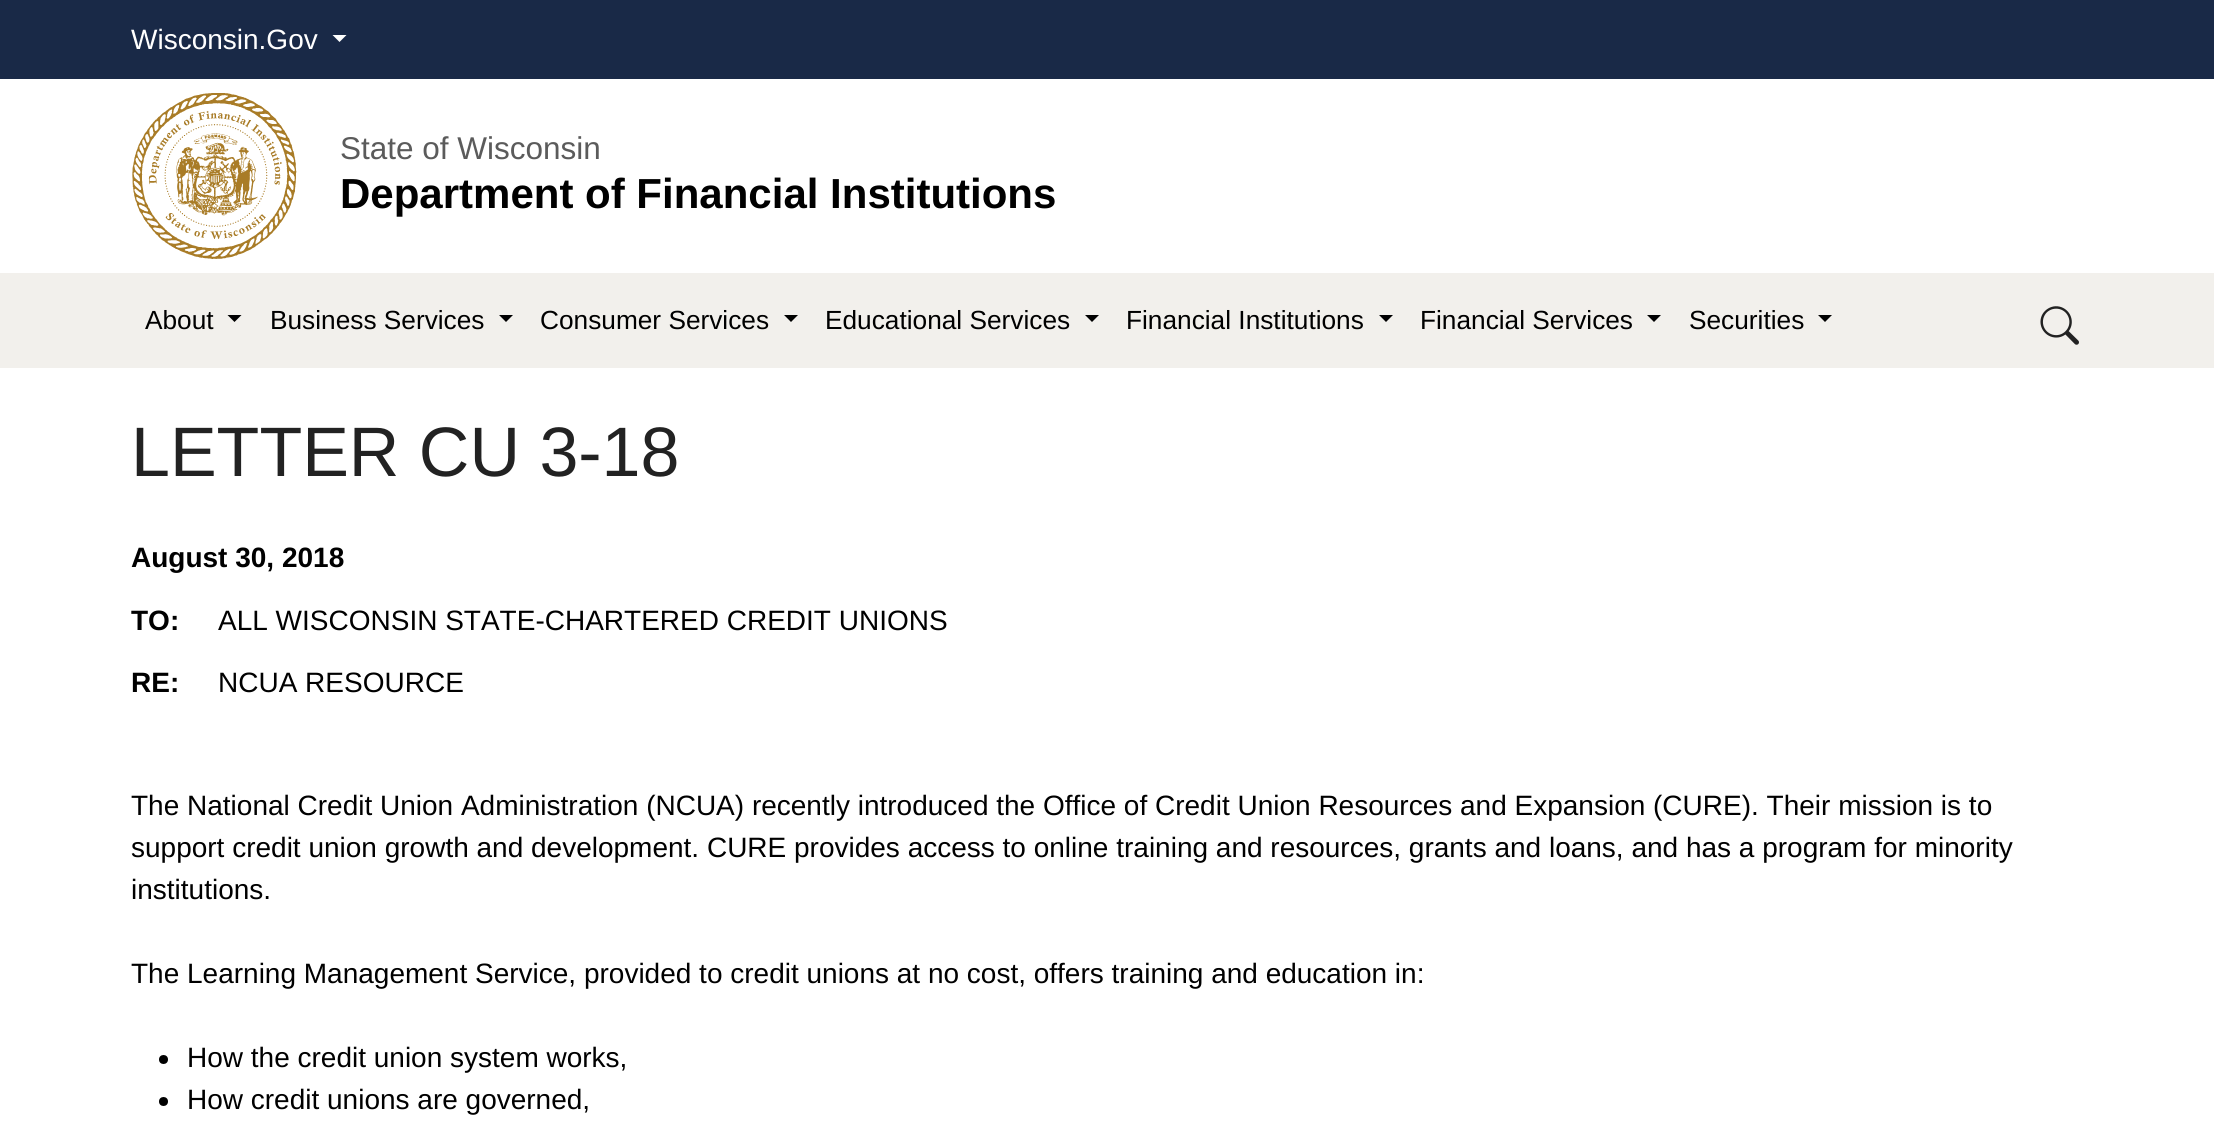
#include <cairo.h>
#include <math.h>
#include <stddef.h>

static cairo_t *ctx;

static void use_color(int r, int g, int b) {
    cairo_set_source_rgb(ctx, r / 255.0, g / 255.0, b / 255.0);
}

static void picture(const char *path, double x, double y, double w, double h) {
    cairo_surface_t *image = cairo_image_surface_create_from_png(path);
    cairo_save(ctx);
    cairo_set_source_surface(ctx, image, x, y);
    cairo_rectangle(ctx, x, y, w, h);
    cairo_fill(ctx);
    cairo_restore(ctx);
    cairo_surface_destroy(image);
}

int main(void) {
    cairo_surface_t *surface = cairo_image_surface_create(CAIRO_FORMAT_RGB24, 2214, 1133);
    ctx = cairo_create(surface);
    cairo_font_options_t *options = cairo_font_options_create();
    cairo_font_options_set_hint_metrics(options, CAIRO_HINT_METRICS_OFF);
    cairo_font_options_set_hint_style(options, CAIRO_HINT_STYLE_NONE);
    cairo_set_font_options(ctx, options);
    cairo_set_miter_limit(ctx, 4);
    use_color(255, 255, 255);
    cairo_paint(ctx);
    use_color(25, 41, 71);
    cairo_rectangle(ctx, 0, 0, 2214, 79);
    cairo_fill(ctx);
    cairo_select_font_face(ctx, "Liberation Sans", CAIRO_FONT_SLANT_NORMAL, CAIRO_FONT_WEIGHT_NORMAL);
    cairo_set_font_size(ctx, 28);
    use_color(255, 255, 255);
    cairo_move_to(ctx, 131, 49);
    cairo_show_text(ctx, "Wisconsin.Gov");
    cairo_new_path(ctx);
    cairo_move_to(ctx, 332.5, 35);
    cairo_line_to(ctx, 346.5, 35);
    cairo_line_to(ctx, 339.5, 42);
    cairo_close_path(ctx);
    cairo_fill(ctx);
    picture("img1.png", 132, 93, 165, 166);
    cairo_set_font_size(ctx, 31.5);
    use_color(91, 91, 91);
    cairo_move_to(ctx, 340, 159);
    cairo_show_text(ctx, "State of Wisconsin");
    cairo_select_font_face(ctx, "Liberation Sans", CAIRO_FONT_SLANT_NORMAL, CAIRO_FONT_WEIGHT_BOLD);
    cairo_set_font_size(ctx, 42);
    use_color(0, 0, 0);
    cairo_move_to(ctx, 340, 208);
    cairo_show_text(ctx, "Department of Financial Institutions");
    use_color(242, 240, 236);
    cairo_rectangle(ctx, 0, 273, 2214, 95);
    cairo_fill(ctx);
    cairo_select_font_face(ctx, "Liberation Sans", CAIRO_FONT_SLANT_NORMAL, CAIRO_FONT_WEIGHT_NORMAL);
    cairo_set_font_size(ctx, 26.25);
    use_color(0, 0, 0);
    cairo_move_to(ctx, 145, 329);
    cairo_show_text(ctx, "About");
    cairo_new_path(ctx);
    cairo_move_to(ctx, 227.5, 315);
    cairo_line_to(ctx, 241.5, 315);
    cairo_line_to(ctx, 234.5, 322);
    cairo_close_path(ctx);
    cairo_fill(ctx);
    cairo_move_to(ctx, 270, 329);
    cairo_show_text(ctx, "Business Services");
    cairo_new_path(ctx);
    cairo_move_to(ctx, 499, 315);
    cairo_line_to(ctx, 513, 315);
    cairo_line_to(ctx, 506, 322);
    cairo_close_path(ctx);
    cairo_fill(ctx);
    cairo_move_to(ctx, 540, 329);
    cairo_show_text(ctx, "Consumer Services");
    cairo_new_path(ctx);
    cairo_move_to(ctx, 784, 315);
    cairo_line_to(ctx, 798, 315);
    cairo_line_to(ctx, 791, 322);
    cairo_close_path(ctx);
    cairo_fill(ctx);
    cairo_move_to(ctx, 825, 329);
    cairo_show_text(ctx, "Educational Services");
    cairo_new_path(ctx);
    cairo_move_to(ctx, 1085, 315);
    cairo_line_to(ctx, 1099, 315);
    cairo_line_to(ctx, 1092, 322);
    cairo_close_path(ctx);
    cairo_fill(ctx);
    cairo_move_to(ctx, 1126, 329);
    cairo_show_text(ctx, "Financial Institutions");
    cairo_new_path(ctx);
    cairo_move_to(ctx, 1379, 315);
    cairo_line_to(ctx, 1393, 315);
    cairo_line_to(ctx, 1386, 322);
    cairo_close_path(ctx);
    cairo_fill(ctx);
    cairo_move_to(ctx, 1420, 329);
    cairo_show_text(ctx, "Financial Services");
    cairo_new_path(ctx);
    cairo_move_to(ctx, 1647, 315);
    cairo_line_to(ctx, 1661, 315);
    cairo_line_to(ctx, 1654, 322);
    cairo_close_path(ctx);
    cairo_fill(ctx);
    cairo_move_to(ctx, 1689, 329);
    cairo_show_text(ctx, "Securities");
    cairo_new_path(ctx);
    cairo_move_to(ctx, 1818, 315);
    cairo_line_to(ctx, 1832, 315);
    cairo_line_to(ctx, 1825, 322);
    cairo_close_path(ctx);
    cairo_fill(ctx);
    picture("img2.png", 2040, 306, 39, 39);
    cairo_set_font_size(ctx, 70);
    use_color(34, 34, 34);
    cairo_move_to(ctx, 131, 476);
    cairo_show_text(ctx, "LETTER CU 3-18");
    cairo_select_font_face(ctx, "Liberation Sans", CAIRO_FONT_SLANT_NORMAL, CAIRO_FONT_WEIGHT_BOLD);
    cairo_set_font_size(ctx, 28);
    use_color(0, 0, 0);
    cairo_move_to(ctx, 131, 567);
    cairo_show_text(ctx, "August 30, 2018");
    cairo_move_to(ctx, 131, 630);
    cairo_show_text(ctx, "TO:");
    cairo_select_font_face(ctx, "Liberation Sans", CAIRO_FONT_SLANT_NORMAL, CAIRO_FONT_WEIGHT_NORMAL);
    cairo_move_to(ctx, 218, 630);
    cairo_show_text(ctx, "ALL WISCONSIN STATE-CHARTERED CREDIT UNIONS");
    cairo_select_font_face(ctx, "Liberation Sans", CAIRO_FONT_SLANT_NORMAL, CAIRO_FONT_WEIGHT_BOLD);
    cairo_move_to(ctx, 131, 692);
    cairo_show_text(ctx, "RE:");
    cairo_select_font_face(ctx, "Liberation Sans", CAIRO_FONT_SLANT_NORMAL, CAIRO_FONT_WEIGHT_NORMAL);
    cairo_move_to(ctx, 218, 692);
    cairo_show_text(ctx, "NCUA RESOURCE");
    cairo_move_to(ctx, 131, 815);
    cairo_show_text(ctx, "The National Credit Union Administration (NCUA) recently introduced the Office of Credit Union Resources and Expansion (CURE). Their mission is to");
    cairo_move_to(ctx, 131, 857);
    cairo_show_text(ctx, "support credit union growth and development. CURE provides access to online training and resources, grants and loans, and has a program for minority");
    cairo_move_to(ctx, 131, 899);
    cairo_show_text(ctx, "institutions.");
    cairo_move_to(ctx, 131, 983);
    cairo_show_text(ctx, "The Learning Management Service, provided to credit unions at no cost, offers training and education in:");
    cairo_new_path(ctx);
    cairo_arc(ctx, 163.5, 1059.5, 4.5, 0, 2 * M_PI);
    cairo_fill(ctx);
    cairo_move_to(ctx, 187, 1067);
    cairo_show_text(ctx, "How the credit union system works,");
    cairo_new_path(ctx);
    cairo_arc(ctx, 163.5, 1101.5, 4.5, 0, 2 * M_PI);
    cairo_fill(ctx);
    cairo_move_to(ctx, 187, 1109);
    cairo_show_text(ctx, "How credit unions are governed,");
    cairo_surface_write_to_png(surface, "result.png");
    cairo_font_options_destroy(options);
    cairo_destroy(ctx);
    cairo_surface_destroy(surface);
    return 0;
}
